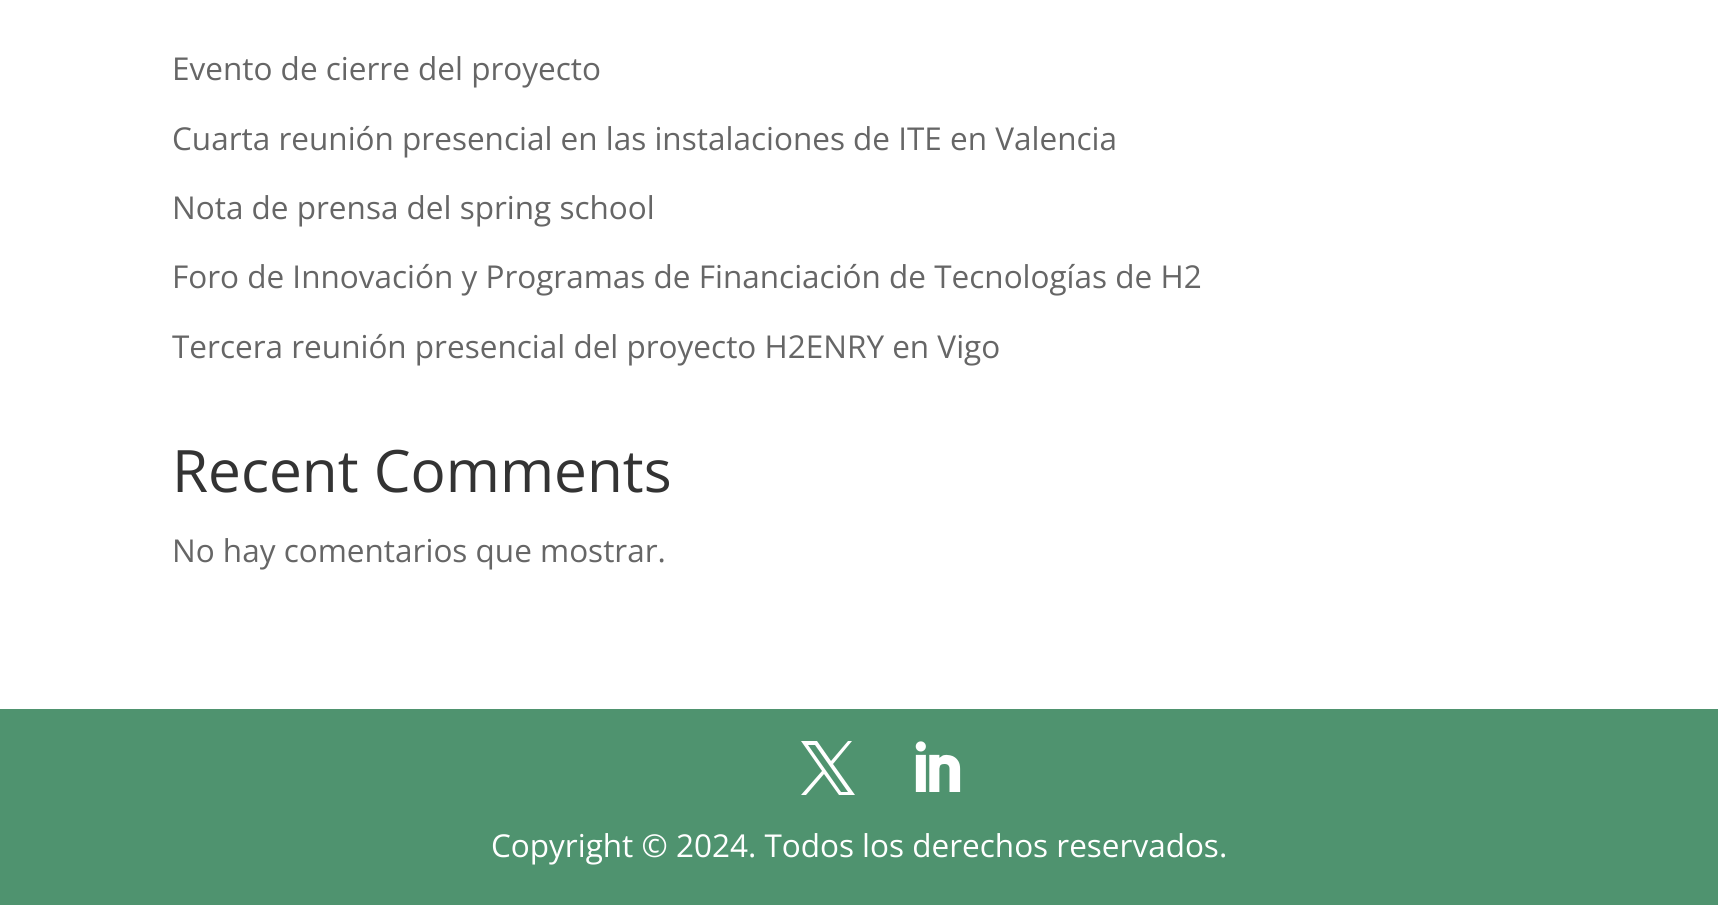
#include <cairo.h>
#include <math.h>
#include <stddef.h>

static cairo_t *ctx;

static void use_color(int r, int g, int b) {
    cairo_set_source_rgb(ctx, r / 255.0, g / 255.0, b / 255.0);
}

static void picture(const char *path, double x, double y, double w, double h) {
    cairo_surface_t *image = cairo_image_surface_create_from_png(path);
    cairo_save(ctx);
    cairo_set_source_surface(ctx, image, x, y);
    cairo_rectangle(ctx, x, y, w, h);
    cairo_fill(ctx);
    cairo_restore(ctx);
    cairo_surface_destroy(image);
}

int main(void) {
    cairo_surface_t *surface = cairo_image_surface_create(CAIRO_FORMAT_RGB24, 1718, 905);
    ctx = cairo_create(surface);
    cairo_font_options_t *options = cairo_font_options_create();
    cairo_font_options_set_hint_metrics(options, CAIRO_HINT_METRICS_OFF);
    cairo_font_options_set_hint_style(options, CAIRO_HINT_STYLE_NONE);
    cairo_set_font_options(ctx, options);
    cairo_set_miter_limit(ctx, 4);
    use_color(255, 255, 255);
    cairo_paint(ctx);
    cairo_select_font_face(ctx, "Open Sans", CAIRO_FONT_SLANT_NORMAL, CAIRO_FONT_WEIGHT_NORMAL);
    cairo_set_font_size(ctx, 31.5);
    use_color(102, 102, 102);
    cairo_move_to(ctx, 172, 80);
    cairo_show_text(ctx, "Evento de cierre del proyecto");
    cairo_move_to(ctx, 172, 150);
    cairo_show_text(ctx, "Cuarta reunión presencial en las instalaciones de ITE en Valencia");
    cairo_move_to(ctx, 172, 219);
    cairo_show_text(ctx, "Nota de prensa del spring school");
    cairo_move_to(ctx, 172, 288);
    cairo_show_text(ctx, "Foro de Innovación y Programas de Financiación de Tecnologías de H2");
    cairo_move_to(ctx, 172, 358);
    cairo_show_text(ctx, "Tercera reunión presencial del proyecto H2ENRY en Vigo");
    cairo_set_font_size(ctx, 58.5);
    use_color(51, 51, 51);
    cairo_move_to(ctx, 172, 492);
    cairo_show_text(ctx, "Recent Comments");
    cairo_set_font_size(ctx, 31.5);
    use_color(102, 102, 102);
    cairo_move_to(ctx, 172, 562);
    cairo_show_text(ctx, "No hay comentarios que mostrar.");
    use_color(79, 147, 111);
    cairo_rectangle(ctx, 0, 709, 1718, 196);
    cairo_fill(ctx);
    use_color(255, 255, 255);
    cairo_new_path(ctx);
    cairo_move_to(ctx, 801, 741);
    cairo_line_to(ctx, 822, 771);
    cairo_line_to(ctx, 801, 795);
    cairo_line_to(ctx, 806, 795);
    cairo_line_to(ctx, 824, 774);
    cairo_line_to(ctx, 839, 795);
    cairo_line_to(ctx, 855, 795);
    cairo_line_to(ctx, 833, 764);
    cairo_line_to(ctx, 852, 741);
    cairo_line_to(ctx, 848, 741);
    cairo_line_to(ctx, 831, 761);
    cairo_line_to(ctx, 817, 741);
    cairo_close_path(ctx);
    cairo_move_to(ctx, 808, 745);
    cairo_line_to(ctx, 815, 745);
    cairo_line_to(ctx, 848, 792);
    cairo_line_to(ctx, 841, 792);
    cairo_close_path(ctx);
    cairo_fill(ctx);
    picture("img1.png", 915, 741, 46, 51);
    cairo_move_to(ctx, 491, 857);
    cairo_show_text(ctx, "Copyright © 2024. Todos los derechos reservados.");
    cairo_surface_write_to_png(surface, "result.png");
    cairo_font_options_destroy(options);
    cairo_destroy(ctx);
    cairo_surface_destroy(surface);
    return 0;
}
